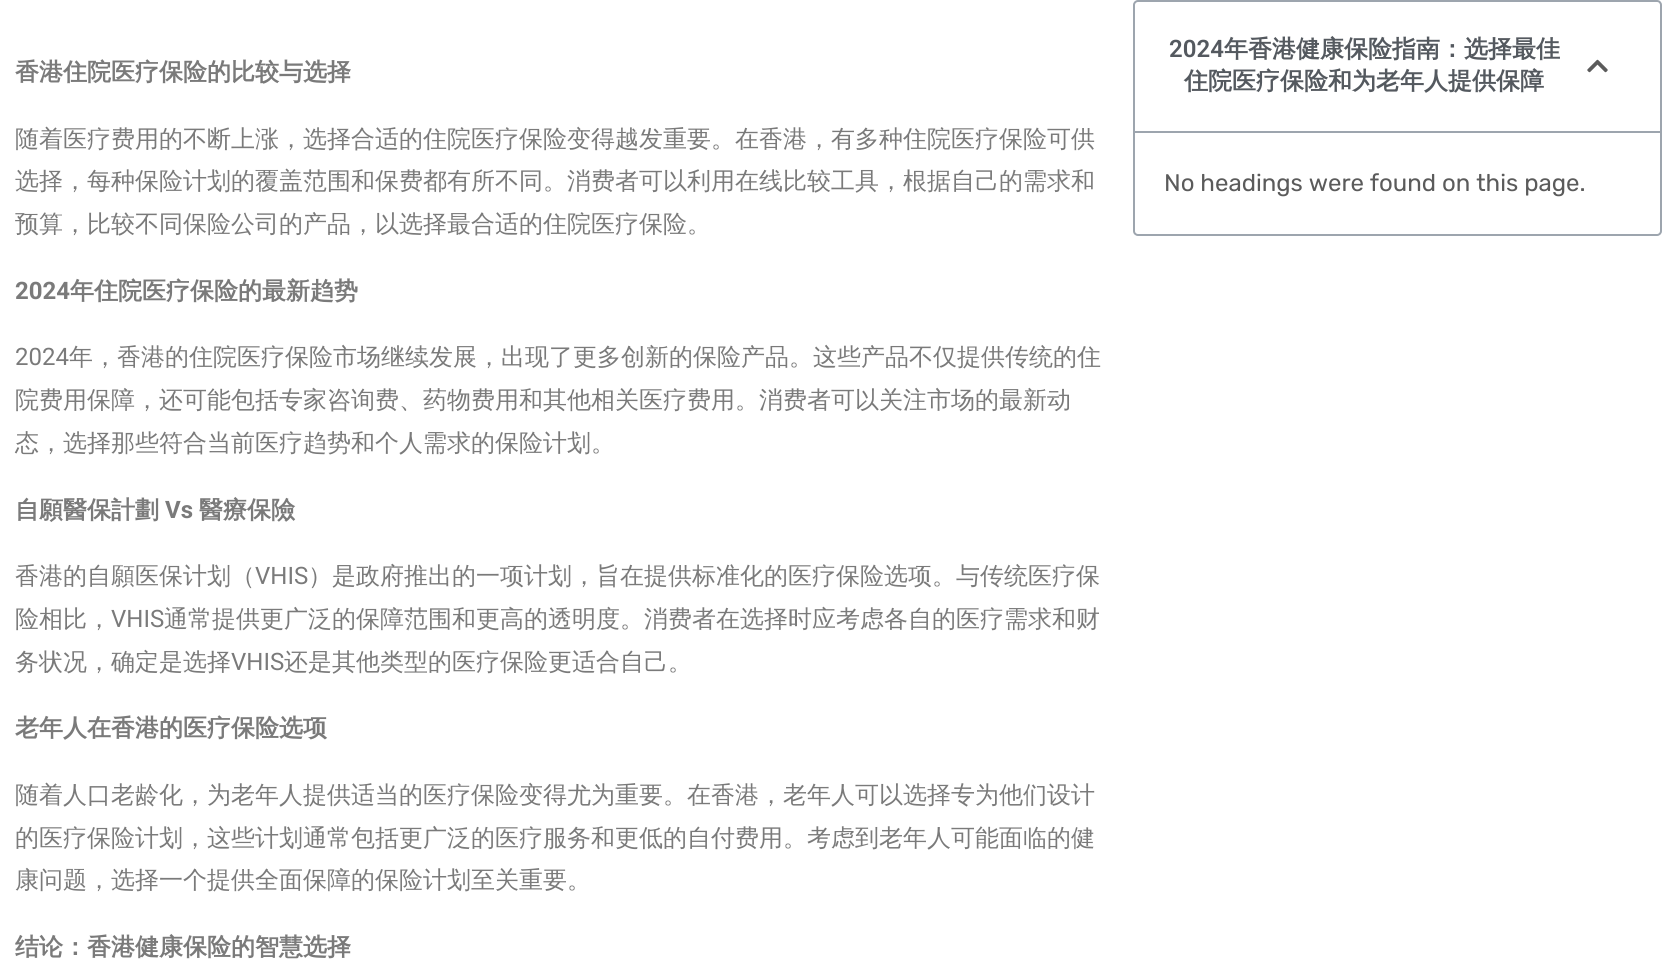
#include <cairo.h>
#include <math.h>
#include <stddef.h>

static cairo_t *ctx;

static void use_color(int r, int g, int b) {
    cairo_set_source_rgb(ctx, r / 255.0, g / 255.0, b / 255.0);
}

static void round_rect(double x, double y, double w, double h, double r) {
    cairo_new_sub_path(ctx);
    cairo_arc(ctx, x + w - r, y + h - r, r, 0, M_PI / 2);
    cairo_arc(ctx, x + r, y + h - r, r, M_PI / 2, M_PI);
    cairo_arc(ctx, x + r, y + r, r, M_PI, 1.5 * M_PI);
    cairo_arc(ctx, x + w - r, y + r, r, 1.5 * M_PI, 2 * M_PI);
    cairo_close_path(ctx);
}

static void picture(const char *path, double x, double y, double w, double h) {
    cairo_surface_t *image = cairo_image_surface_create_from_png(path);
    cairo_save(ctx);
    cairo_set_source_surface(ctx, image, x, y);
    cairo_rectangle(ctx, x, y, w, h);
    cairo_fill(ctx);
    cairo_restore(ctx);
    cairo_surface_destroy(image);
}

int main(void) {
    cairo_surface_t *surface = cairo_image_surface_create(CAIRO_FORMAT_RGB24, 1677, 974);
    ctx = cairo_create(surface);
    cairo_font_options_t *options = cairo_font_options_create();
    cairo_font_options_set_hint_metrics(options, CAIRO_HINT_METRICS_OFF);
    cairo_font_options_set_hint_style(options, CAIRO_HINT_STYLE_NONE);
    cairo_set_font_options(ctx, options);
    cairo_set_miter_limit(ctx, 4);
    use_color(255, 255, 255);
    cairo_paint(ctx);
    cairo_select_font_face(ctx, "WenQuanYi Zen Hei", CAIRO_FONT_SLANT_NORMAL, CAIRO_FONT_WEIGHT_BOLD);
    cairo_set_font_size(ctx, 24);
    use_color(122, 122, 122);
    cairo_move_to(ctx, 15, 80);
    cairo_show_text(ctx, "香港住院医疗保险的比较与选择");
    cairo_select_font_face(ctx, "WenQuanYi Zen Hei Medium", CAIRO_FONT_SLANT_NORMAL, CAIRO_FONT_WEIGHT_NORMAL);
    cairo_move_to(ctx, 15, 147);
    cairo_show_text(ctx, "随着医疗费用的不断上涨，选择合适的住院医疗保险变得越发重要。在香港，有多种住院医疗保险可供");
    cairo_move_to(ctx, 15, 189);
    cairo_show_text(ctx, "选择，每种保险计划的覆盖范围和保费都有所不同。消费者可以利用在线比较工具，根据自己的需求和");
    cairo_move_to(ctx, 15, 232);
    cairo_show_text(ctx, "预算，比较不同保险公司的产品，以选择最合适的住院医疗保险。");
    cairo_select_font_face(ctx, "Roboto", CAIRO_FONT_SLANT_NORMAL, CAIRO_FONT_WEIGHT_BOLD);
    cairo_move_to(ctx, 15, 299);
    cairo_show_text(ctx, "2024");
    cairo_select_font_face(ctx, "WenQuanYi Zen Hei", CAIRO_FONT_SLANT_NORMAL, CAIRO_FONT_WEIGHT_BOLD);
    cairo_move_to(ctx, 70, 299);
    cairo_show_text(ctx, "年住院医疗保险的最新趋势");
    cairo_select_font_face(ctx, "Roboto", CAIRO_FONT_SLANT_NORMAL, CAIRO_FONT_WEIGHT_NORMAL);
    cairo_move_to(ctx, 15, 365);
    cairo_show_text(ctx, "2024");
    cairo_select_font_face(ctx, "WenQuanYi Zen Hei Medium", CAIRO_FONT_SLANT_NORMAL, CAIRO_FONT_WEIGHT_NORMAL);
    cairo_move_to(ctx, 69, 365);
    cairo_show_text(ctx, "年，香港的住院医疗保险市场继续发展，出现了更多创新的保险产品。这些产品不仅提供传统的住");
    cairo_move_to(ctx, 15, 408);
    cairo_show_text(ctx, "院费用保障，还可能包括专家咨询费、药物费用和其他相关医疗费用。消费者可以关注市场的最新动");
    cairo_move_to(ctx, 15, 451);
    cairo_show_text(ctx, "态，选择那些符合当前医疗趋势和个人需求的保险计划。");
    cairo_select_font_face(ctx, "WenQuanYi Zen Hei", CAIRO_FONT_SLANT_NORMAL, CAIRO_FONT_WEIGHT_BOLD);
    cairo_move_to(ctx, 15, 518);
    cairo_show_text(ctx, "自願醫保計劃");
    cairo_select_font_face(ctx, "Roboto", CAIRO_FONT_SLANT_NORMAL, CAIRO_FONT_WEIGHT_BOLD);
    cairo_move_to(ctx, 165, 518);
    cairo_show_text(ctx, "Vs");
    cairo_select_font_face(ctx, "WenQuanYi Zen Hei", CAIRO_FONT_SLANT_NORMAL, CAIRO_FONT_WEIGHT_BOLD);
    cairo_move_to(ctx, 199, 518);
    cairo_show_text(ctx, "醫療保險");
    cairo_select_font_face(ctx, "WenQuanYi Zen Hei Medium", CAIRO_FONT_SLANT_NORMAL, CAIRO_FONT_WEIGHT_NORMAL);
    cairo_move_to(ctx, 15, 584);
    cairo_show_text(ctx, "香港的自願医保计划（");
    cairo_select_font_face(ctx, "Roboto", CAIRO_FONT_SLANT_NORMAL, CAIRO_FONT_WEIGHT_NORMAL);
    cairo_move_to(ctx, 255, 584);
    cairo_show_text(ctx, "VHIS");
    cairo_select_font_face(ctx, "WenQuanYi Zen Hei Medium", CAIRO_FONT_SLANT_NORMAL, CAIRO_FONT_WEIGHT_NORMAL);
    cairo_move_to(ctx, 308, 584);
    cairo_show_text(ctx, "）是政府推出的一项计划，旨在提供标准化的医疗保险选项。与传统医疗保");
    cairo_move_to(ctx, 15, 627);
    cairo_show_text(ctx, "险相比，");
    cairo_select_font_face(ctx, "Roboto", CAIRO_FONT_SLANT_NORMAL, CAIRO_FONT_WEIGHT_NORMAL);
    cairo_move_to(ctx, 111, 627);
    cairo_show_text(ctx, "VHIS");
    cairo_select_font_face(ctx, "WenQuanYi Zen Hei Medium", CAIRO_FONT_SLANT_NORMAL, CAIRO_FONT_WEIGHT_NORMAL);
    cairo_move_to(ctx, 164, 627);
    cairo_show_text(ctx, "通常提供更广泛的保障范围和更高的透明度。消费者在选择时应考虑各自的医疗需求和财");
    cairo_move_to(ctx, 15, 670);
    cairo_show_text(ctx, "务状况，确定是选择");
    cairo_select_font_face(ctx, "Roboto", CAIRO_FONT_SLANT_NORMAL, CAIRO_FONT_WEIGHT_NORMAL);
    cairo_move_to(ctx, 231, 670);
    cairo_show_text(ctx, "VHIS");
    cairo_select_font_face(ctx, "WenQuanYi Zen Hei Medium", CAIRO_FONT_SLANT_NORMAL, CAIRO_FONT_WEIGHT_NORMAL);
    cairo_move_to(ctx, 284, 670);
    cairo_show_text(ctx, "还是其他类型的医疗保险更适合自己。");
    cairo_select_font_face(ctx, "WenQuanYi Zen Hei", CAIRO_FONT_SLANT_NORMAL, CAIRO_FONT_WEIGHT_BOLD);
    cairo_move_to(ctx, 15, 736);
    cairo_show_text(ctx, "老年人在香港的医疗保险选项");
    cairo_select_font_face(ctx, "WenQuanYi Zen Hei Medium", CAIRO_FONT_SLANT_NORMAL, CAIRO_FONT_WEIGHT_NORMAL);
    cairo_move_to(ctx, 15, 803);
    cairo_show_text(ctx, "随着人口老龄化，为老年人提供适当的医疗保险变得尤为重要。在香港，老年人可以选择专为他们设计");
    cairo_move_to(ctx, 15, 846);
    cairo_show_text(ctx, "的医疗保险计划，这些计划通常包括更广泛的医疗服务和更低的自付费用。考虑到老年人可能面临的健");
    cairo_move_to(ctx, 15, 888);
    cairo_show_text(ctx, "康问题，选择一个提供全面保障的保险计划至关重要。");
    cairo_select_font_face(ctx, "WenQuanYi Zen Hei", CAIRO_FONT_SLANT_NORMAL, CAIRO_FONT_WEIGHT_BOLD);
    cairo_move_to(ctx, 15, 955);
    cairo_show_text(ctx, "结论：香港健康保险的智慧选择");
    round_rect(1134, 1, 527, 234, 4);
    use_color(157, 165, 174);
    cairo_stroke(ctx);
    cairo_rectangle(ctx, 1134, 131, 527, 2);
    cairo_fill(ctx);
    cairo_select_font_face(ctx, "Roboto SemiBold", CAIRO_FONT_SLANT_NORMAL, CAIRO_FONT_WEIGHT_NORMAL);
    use_color(84, 89, 95);
    cairo_move_to(ctx, 1169, 57);
    cairo_show_text(ctx, "2024");
    cairo_select_font_face(ctx, "WenQuanYi Zen Hei", CAIRO_FONT_SLANT_NORMAL, CAIRO_FONT_WEIGHT_BOLD);
    cairo_move_to(ctx, 1224, 57);
    cairo_show_text(ctx, "年香港健康保险指南：选择最佳");
    cairo_move_to(ctx, 1184, 89);
    cairo_show_text(ctx, "住院医疗保险和为老年人提供保障");
    picture("img1.png", 1587, 59, 21, 14);
    cairo_select_font_face(ctx, "Rubik Light", CAIRO_FONT_SLANT_NORMAL, CAIRO_FONT_WEIGHT_NORMAL);
    use_color(91, 91, 91);
    cairo_move_to(ctx, 1164, 191);
    cairo_show_text(ctx, "No headings were found on this page.");
    cairo_surface_write_to_png(surface, "result.png");
    cairo_font_options_destroy(options);
    cairo_destroy(ctx);
    cairo_surface_destroy(surface);
    return 0;
}
